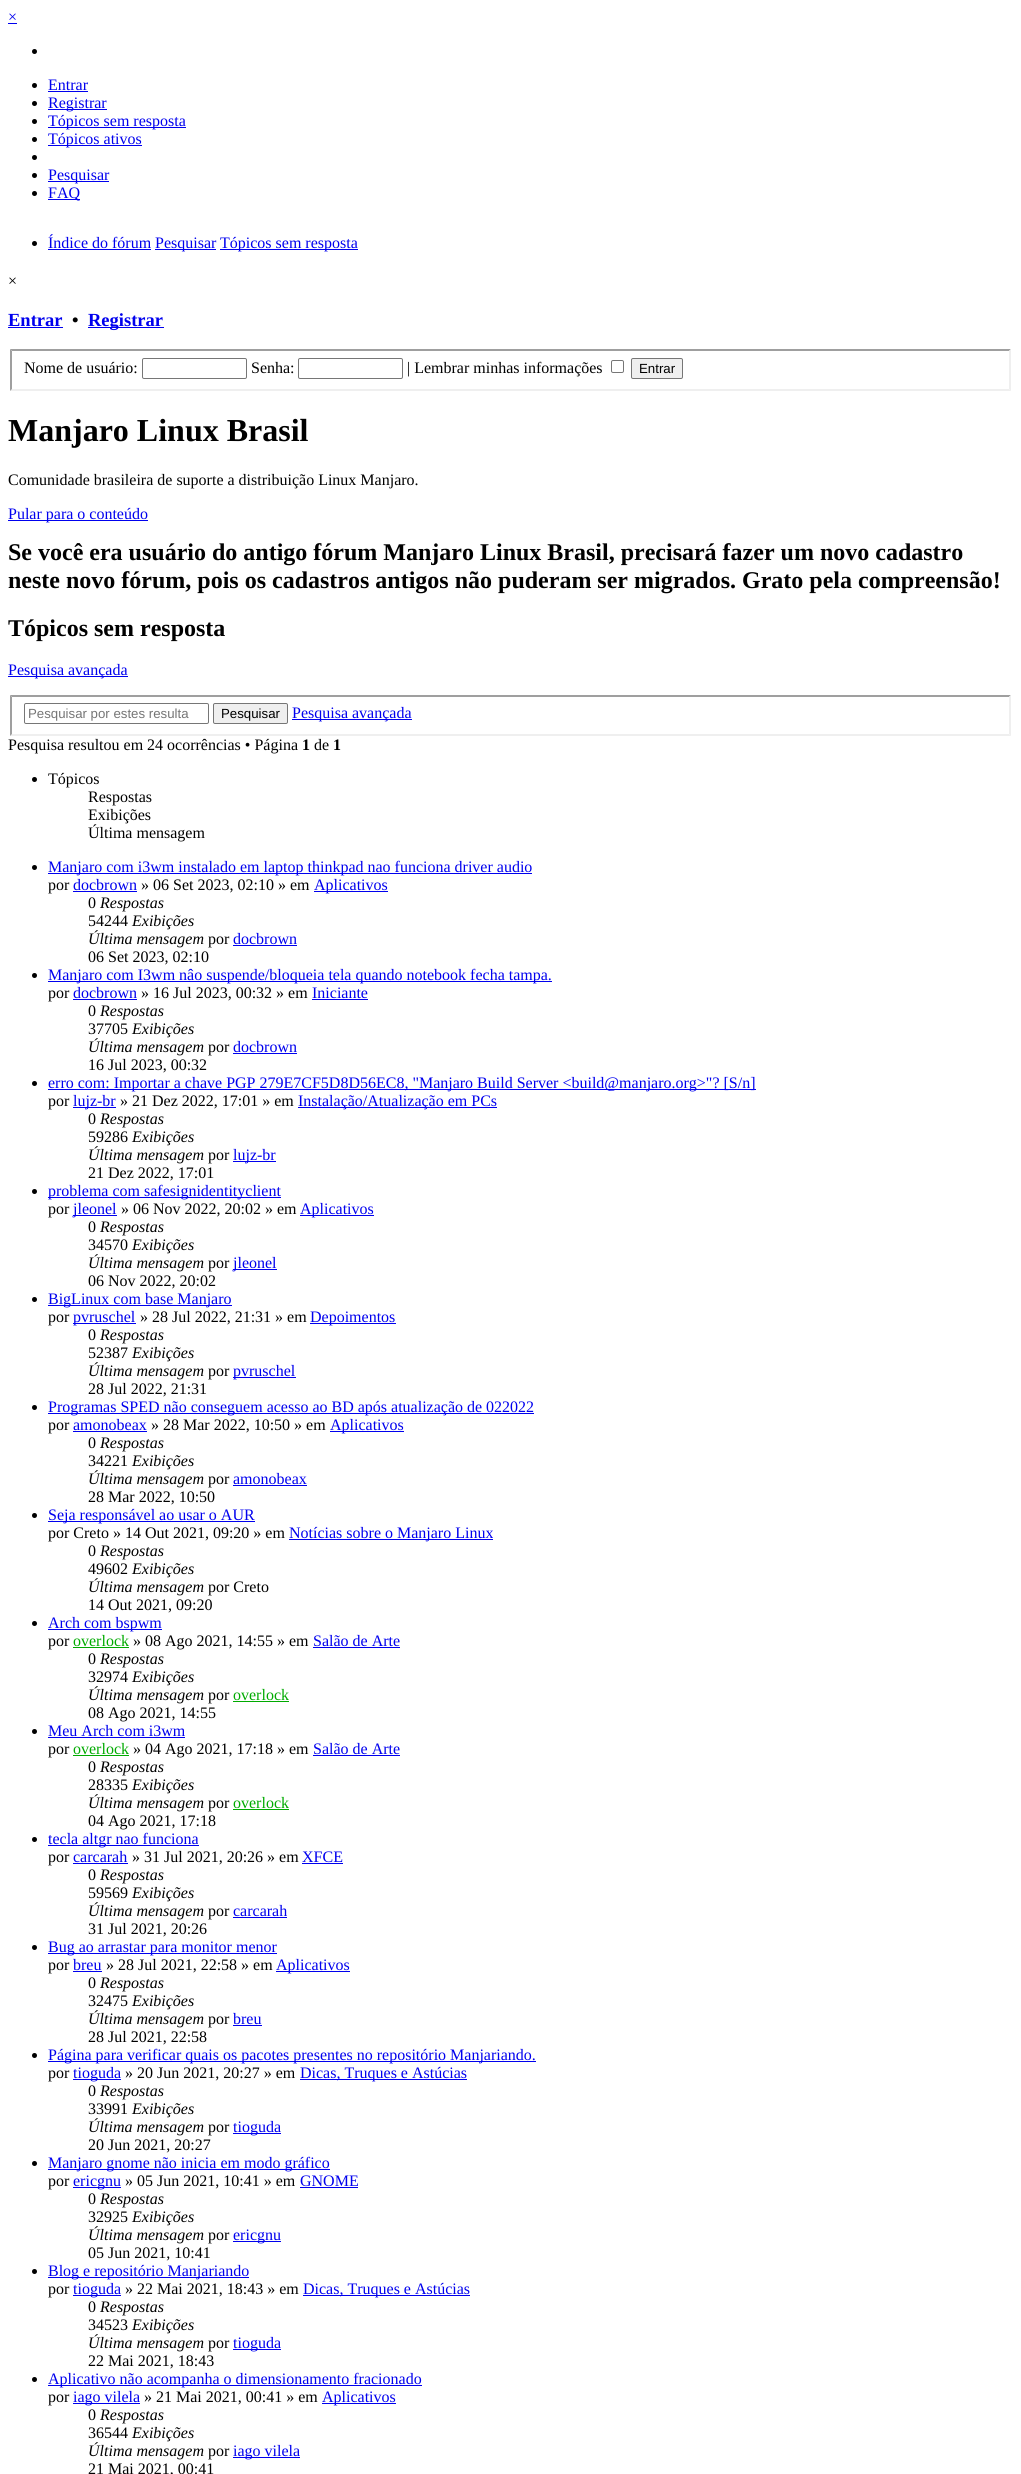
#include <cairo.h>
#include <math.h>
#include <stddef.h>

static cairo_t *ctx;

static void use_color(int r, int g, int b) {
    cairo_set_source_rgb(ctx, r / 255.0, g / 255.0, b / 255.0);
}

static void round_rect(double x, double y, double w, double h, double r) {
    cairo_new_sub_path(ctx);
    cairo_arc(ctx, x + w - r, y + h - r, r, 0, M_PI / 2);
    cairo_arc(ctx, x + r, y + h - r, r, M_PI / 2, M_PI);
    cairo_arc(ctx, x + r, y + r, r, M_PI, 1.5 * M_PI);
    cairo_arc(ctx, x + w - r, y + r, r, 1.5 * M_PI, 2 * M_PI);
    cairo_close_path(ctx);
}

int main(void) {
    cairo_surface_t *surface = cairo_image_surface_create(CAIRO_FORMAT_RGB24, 1021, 2474);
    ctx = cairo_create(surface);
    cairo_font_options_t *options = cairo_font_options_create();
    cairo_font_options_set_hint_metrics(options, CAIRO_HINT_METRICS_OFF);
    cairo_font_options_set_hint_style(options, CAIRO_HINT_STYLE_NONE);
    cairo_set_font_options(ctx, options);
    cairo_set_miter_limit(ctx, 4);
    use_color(255, 255, 255);
    cairo_paint(ctx);
    cairo_select_font_face(ctx, "Liberation Serif", CAIRO_FONT_SLANT_NORMAL, CAIRO_FONT_WEIGHT_NORMAL);
    cairo_set_font_size(ctx, 16);
    use_color(0, 0, 238);
    cairo_move_to(ctx, 8, 22);
    cairo_show_text(ctx, "×");
    cairo_rectangle(ctx, 8, 23, 9, 1);
    cairo_fill(ctx);
    use_color(0, 0, 0);
    cairo_arc(ctx, 34.5, 51.5, 2.5, 0, 2 * M_PI);
    cairo_fill(ctx);
    cairo_arc(ctx, 34.5, 85.5, 2.5, 0, 2 * M_PI);
    cairo_fill(ctx);
    use_color(0, 0, 238);
    cairo_move_to(ctx, 48, 90);
    cairo_show_text(ctx, "Entrar");
    cairo_rectangle(ctx, 48, 91, 40, 1);
    cairo_fill(ctx);
    use_color(0, 0, 0);
    cairo_arc(ctx, 34.5, 103.5, 2.5, 0, 2 * M_PI);
    cairo_fill(ctx);
    use_color(0, 0, 238);
    cairo_rectangle(ctx, 48, 109, 59, 1);
    cairo_fill(ctx);
    cairo_move_to(ctx, 48, 108);
    cairo_show_text(ctx, "Registrar");
    use_color(0, 0, 0);
    cairo_new_path(ctx);
    cairo_arc(ctx, 34.5, 121.5, 2.5, 0, 2 * M_PI);
    cairo_fill(ctx);
    use_color(0, 0, 238);
    cairo_rectangle(ctx, 48, 127, 138, 1);
    cairo_fill(ctx);
    cairo_move_to(ctx, 48, 126);
    cairo_show_text(ctx, "Tópicos sem resposta");
    use_color(0, 0, 0);
    cairo_new_path(ctx);
    cairo_arc(ctx, 34.5, 139.5, 2.5, 0, 2 * M_PI);
    cairo_fill(ctx);
    use_color(0, 0, 238);
    cairo_rectangle(ctx, 48, 145, 94, 1);
    cairo_fill(ctx);
    cairo_move_to(ctx, 48, 144);
    cairo_show_text(ctx, "Tópicos ativos");
    use_color(0, 0, 0);
    cairo_new_path(ctx);
    cairo_arc(ctx, 34.5, 157.5, 2.5, 0, 2 * M_PI);
    cairo_fill(ctx);
    cairo_arc(ctx, 34.5, 175.5, 2.5, 0, 2 * M_PI);
    cairo_fill(ctx);
    use_color(0, 0, 238);
    cairo_rectangle(ctx, 48, 181, 61, 1);
    cairo_fill(ctx);
    cairo_move_to(ctx, 48, 180);
    cairo_show_text(ctx, "Pesquisar");
    use_color(0, 0, 0);
    cairo_new_path(ctx);
    cairo_arc(ctx, 34.5, 193.5, 2.5, 0, 2 * M_PI);
    cairo_fill(ctx);
    use_color(0, 0, 238);
    cairo_rectangle(ctx, 48, 199, 32, 1);
    cairo_fill(ctx);
    cairo_move_to(ctx, 48, 198);
    cairo_show_text(ctx, "FAQ");
    use_color(0, 0, 0);
    cairo_new_path(ctx);
    cairo_arc(ctx, 34.5, 243.5, 2.5, 0, 2 * M_PI);
    cairo_fill(ctx);
    use_color(0, 0, 238);
    cairo_move_to(ctx, 48, 248);
    cairo_show_text(ctx, "Índice do fórum");
    cairo_rectangle(ctx, 48, 249, 103, 1);
    cairo_fill(ctx);
    cairo_rectangle(ctx, 155, 249, 61, 1);
    cairo_fill(ctx);
    cairo_move_to(ctx, 155, 248);
    cairo_show_text(ctx, "Pesquisar");
    cairo_rectangle(ctx, 220, 249, 138, 1);
    cairo_fill(ctx);
    cairo_move_to(ctx, 220, 248);
    cairo_show_text(ctx, "Tópicos sem resposta");
    use_color(0, 0, 0);
    cairo_move_to(ctx, 8, 286);
    cairo_show_text(ctx, "×");
    cairo_select_font_face(ctx, "Liberation Serif", CAIRO_FONT_SLANT_NORMAL, CAIRO_FONT_WEIGHT_BOLD);
    cairo_set_font_size(ctx, 18.5);
    use_color(0, 0, 238);
    cairo_move_to(ctx, 8, 326);
    cairo_show_text(ctx, "Entrar");
    cairo_rectangle(ctx, 8, 327, 55, 1);
    cairo_fill(ctx);
    use_color(0, 0, 0);
    cairo_move_to(ctx, 72, 326);
    cairo_show_text(ctx, "•");
    use_color(0, 0, 238);
    cairo_rectangle(ctx, 88, 327, 76, 1);
    cairo_fill(ctx);
    cairo_move_to(ctx, 88, 326);
    cairo_show_text(ctx, "Registrar");
    use_color(159, 159, 159);
    cairo_new_path(ctx);
    cairo_move_to(ctx, 10, 349);
    cairo_line_to(ctx, 1011, 349);
    cairo_line_to(ctx, 1009, 351);
    cairo_line_to(ctx, 12, 351);
    cairo_close_path(ctx);
    cairo_fill(ctx);
    use_color(239, 239, 239);
    cairo_new_path(ctx);
    cairo_move_to(ctx, 1011, 349);
    cairo_line_to(ctx, 1011, 391);
    cairo_line_to(ctx, 1009, 389);
    cairo_line_to(ctx, 1009, 351);
    cairo_close_path(ctx);
    cairo_fill(ctx);
    cairo_new_path(ctx);
    cairo_move_to(ctx, 1011, 391);
    cairo_line_to(ctx, 10, 391);
    cairo_line_to(ctx, 12, 389);
    cairo_line_to(ctx, 1009, 389);
    cairo_close_path(ctx);
    cairo_fill(ctx);
    use_color(159, 159, 159);
    cairo_new_path(ctx);
    cairo_move_to(ctx, 10, 391);
    cairo_line_to(ctx, 10, 349);
    cairo_line_to(ctx, 12, 351);
    cairo_line_to(ctx, 12, 389);
    cairo_close_path(ctx);
    cairo_fill(ctx);
    cairo_select_font_face(ctx, "Liberation Serif", CAIRO_FONT_SLANT_NORMAL, CAIRO_FONT_WEIGHT_NORMAL);
    cairo_set_font_size(ctx, 16);
    use_color(0, 0, 0);
    cairo_move_to(ctx, 24, 373);
    cairo_show_text(ctx, "Nome de usuário:");
    round_rect(142.5, 358.5, 104, 20, 1.5);
    use_color(118, 118, 118);
    cairo_set_line_width(ctx, 1);
    cairo_stroke(ctx);
    use_color(0, 0, 0);
    cairo_move_to(ctx, 251, 373);
    cairo_show_text(ctx, "Senha:");
    round_rect(298.5, 358.5, 104, 20, 1.5);
    use_color(118, 118, 118);
    cairo_stroke(ctx);
    use_color(0, 0, 0);
    cairo_move_to(ctx, 407, 373);
    cairo_show_text(ctx, "| Lembrar minhas informações");
    round_rect(611.5, 360.5, 12, 12, 1.5);
    use_color(118, 118, 118);
    cairo_stroke(ctx);
    use_color(239, 239, 239);
    round_rect(631.5, 358.5, 51, 20, 1.5);
    cairo_fill_preserve(ctx);
    use_color(118, 118, 118);
    cairo_stroke(ctx);
    cairo_select_font_face(ctx, "Liberation Sans", CAIRO_FONT_SLANT_NORMAL, CAIRO_FONT_WEIGHT_NORMAL);
    cairo_set_font_size(ctx, 13.25);
    use_color(0, 0, 0);
    cairo_move_to(ctx, 639, 373);
    cairo_show_text(ctx, "Entrar");
    cairo_select_font_face(ctx, "Liberation Serif", CAIRO_FONT_SLANT_NORMAL, CAIRO_FONT_WEIGHT_BOLD);
    cairo_set_font_size(ctx, 32);
    cairo_move_to(ctx, 8, 441);
    cairo_show_text(ctx, "Manjaro Linux Brasil");
    cairo_select_font_face(ctx, "Liberation Serif", CAIRO_FONT_SLANT_NORMAL, CAIRO_FONT_WEIGHT_NORMAL);
    cairo_set_font_size(ctx, 16);
    cairo_move_to(ctx, 8, 485);
    cairo_show_text(ctx, "Comunidade brasileira de suporte a distribuição Linux Manjaro.");
    use_color(0, 0, 238);
    cairo_rectangle(ctx, 8, 520, 140, 1);
    cairo_fill(ctx);
    cairo_move_to(ctx, 8, 519);
    cairo_show_text(ctx, "Pular para o conteúdo");
    cairo_select_font_face(ctx, "Liberation Serif", CAIRO_FONT_SLANT_NORMAL, CAIRO_FONT_WEIGHT_BOLD);
    cairo_set_font_size(ctx, 24);
    use_color(0, 0, 0);
    cairo_move_to(ctx, 8, 560);
    cairo_show_text(ctx, "Se você era usuário do antigo fórum Manjaro Linux Brasil, precisará fazer um novo cadastro");
    cairo_move_to(ctx, 8, 588);
    cairo_show_text(ctx, "neste novo fórum, pois os cadastros antigos não puderam ser migrados. Grato pela compreensão!");
    cairo_move_to(ctx, 8, 636);
    cairo_show_text(ctx, "Tópicos sem resposta");
    use_color(0, 0, 238);
    cairo_rectangle(ctx, 8, 676, 120, 1);
    cairo_fill(ctx);
    cairo_select_font_face(ctx, "Liberation Serif", CAIRO_FONT_SLANT_NORMAL, CAIRO_FONT_WEIGHT_NORMAL);
    cairo_set_font_size(ctx, 16);
    cairo_move_to(ctx, 8, 675);
    cairo_show_text(ctx, "Pesquisa avançada");
    use_color(159, 159, 159);
    cairo_new_path(ctx);
    cairo_move_to(ctx, 10, 695);
    cairo_line_to(ctx, 1011, 695);
    cairo_line_to(ctx, 1009, 697);
    cairo_line_to(ctx, 12, 697);
    cairo_close_path(ctx);
    cairo_fill(ctx);
    use_color(239, 239, 239);
    cairo_new_path(ctx);
    cairo_move_to(ctx, 1011, 695);
    cairo_line_to(ctx, 1011, 736);
    cairo_line_to(ctx, 1009, 734);
    cairo_line_to(ctx, 1009, 697);
    cairo_close_path(ctx);
    cairo_fill(ctx);
    cairo_new_path(ctx);
    cairo_move_to(ctx, 1011, 736);
    cairo_line_to(ctx, 10, 736);
    cairo_line_to(ctx, 12, 734);
    cairo_line_to(ctx, 1009, 734);
    cairo_close_path(ctx);
    cairo_fill(ctx);
    use_color(159, 159, 159);
    cairo_new_path(ctx);
    cairo_move_to(ctx, 10, 736);
    cairo_line_to(ctx, 10, 695);
    cairo_line_to(ctx, 12, 697);
    cairo_line_to(ctx, 12, 734);
    cairo_close_path(ctx);
    cairo_fill(ctx);
    round_rect(24.5, 703.5, 184, 20, 1.5);
    use_color(118, 118, 118);
    cairo_stroke(ctx);
    cairo_select_font_face(ctx, "Liberation Sans", CAIRO_FONT_SLANT_NORMAL, CAIRO_FONT_WEIGHT_NORMAL);
    cairo_set_font_size(ctx, 13.25);
    use_color(117, 117, 117);
    cairo_move_to(ctx, 28, 718);
    cairo_show_text(ctx, "Pesquisar por estes resulta");
    use_color(239, 239, 239);
    round_rect(213.5, 703.5, 74, 20, 1.5);
    cairo_fill_preserve(ctx);
    use_color(118, 118, 118);
    cairo_stroke(ctx);
    use_color(0, 0, 0);
    cairo_move_to(ctx, 221, 718);
    cairo_show_text(ctx, "Pesquisar");
    use_color(0, 0, 238);
    cairo_rectangle(ctx, 292, 719, 120, 1);
    cairo_fill(ctx);
    cairo_select_font_face(ctx, "Liberation Serif", CAIRO_FONT_SLANT_NORMAL, CAIRO_FONT_WEIGHT_NORMAL);
    cairo_set_font_size(ctx, 16);
    cairo_move_to(ctx, 292, 718);
    cairo_show_text(ctx, "Pesquisa avançada");
    use_color(0, 0, 0);
    cairo_move_to(ctx, 8, 750);
    cairo_show_text(ctx, "Pesquisa resultou em 24 ocorrências • Página");
    cairo_select_font_face(ctx, "Liberation Serif", CAIRO_FONT_SLANT_NORMAL, CAIRO_FONT_WEIGHT_BOLD);
    cairo_move_to(ctx, 302, 750);
    cairo_show_text(ctx, "1");
    cairo_select_font_face(ctx, "Liberation Serif", CAIRO_FONT_SLANT_NORMAL, CAIRO_FONT_WEIGHT_NORMAL);
    cairo_move_to(ctx, 314, 750);
    cairo_show_text(ctx, "de");
    cairo_select_font_face(ctx, "Liberation Serif", CAIRO_FONT_SLANT_NORMAL, CAIRO_FONT_WEIGHT_BOLD);
    cairo_move_to(ctx, 333, 750);
    cairo_show_text(ctx, "1");
    cairo_new_path(ctx);
    cairo_arc(ctx, 34.5, 779.5, 2.5, 0, 2 * M_PI);
    cairo_fill(ctx);
    cairo_select_font_face(ctx, "Liberation Serif", CAIRO_FONT_SLANT_NORMAL, CAIRO_FONT_WEIGHT_NORMAL);
    cairo_move_to(ctx, 48, 784);
    cairo_show_text(ctx, "Tópicos");
    cairo_move_to(ctx, 88, 802);
    cairo_show_text(ctx, "Respostas");
    cairo_move_to(ctx, 88, 820);
    cairo_show_text(ctx, "Exibições");
    cairo_move_to(ctx, 88, 838);
    cairo_show_text(ctx, "Última mensagem");
    cairo_new_path(ctx);
    cairo_arc(ctx, 34.5, 867.5, 2.5, 0, 2 * M_PI);
    cairo_fill(ctx);
    use_color(0, 0, 238);
    cairo_rectangle(ctx, 48, 873, 484, 1);
    cairo_fill(ctx);
    cairo_move_to(ctx, 48, 872);
    cairo_show_text(ctx, "Manjaro com i3wm instalado em laptop thinkpad nao funciona driver audio");
    use_color(0, 0, 0);
    cairo_move_to(ctx, 48, 890);
    cairo_show_text(ctx, "por");
    use_color(0, 0, 238);
    cairo_move_to(ctx, 73, 890);
    cairo_show_text(ctx, "docbrown");
    cairo_rectangle(ctx, 73, 891, 64, 1);
    cairo_fill(ctx);
    use_color(0, 0, 0);
    cairo_move_to(ctx, 141, 890);
    cairo_show_text(ctx, "» 06 Set 2023, 02:10 » em");
    use_color(0, 0, 238);
    cairo_rectangle(ctx, 314, 891, 74, 1);
    cairo_fill(ctx);
    cairo_move_to(ctx, 314, 890);
    cairo_show_text(ctx, "Aplicativos");
    use_color(0, 0, 0);
    cairo_move_to(ctx, 88, 908);
    cairo_show_text(ctx, "0");
    cairo_select_font_face(ctx, "Liberation Serif", CAIRO_FONT_SLANT_ITALIC, CAIRO_FONT_WEIGHT_NORMAL);
    cairo_move_to(ctx, 100, 908);
    cairo_show_text(ctx, "Respostas");
    cairo_select_font_face(ctx, "Liberation Serif", CAIRO_FONT_SLANT_NORMAL, CAIRO_FONT_WEIGHT_NORMAL);
    cairo_move_to(ctx, 88, 926);
    cairo_show_text(ctx, "54244");
    cairo_select_font_face(ctx, "Liberation Serif", CAIRO_FONT_SLANT_ITALIC, CAIRO_FONT_WEIGHT_NORMAL);
    cairo_move_to(ctx, 132, 926);
    cairo_show_text(ctx, "Exibições");
    cairo_move_to(ctx, 88, 944);
    cairo_show_text(ctx, "Última mensagem");
    cairo_select_font_face(ctx, "Liberation Serif", CAIRO_FONT_SLANT_NORMAL, CAIRO_FONT_WEIGHT_NORMAL);
    cairo_move_to(ctx, 208, 944);
    cairo_show_text(ctx, "por");
    use_color(0, 0, 238);
    cairo_rectangle(ctx, 233, 945, 64, 1);
    cairo_fill(ctx);
    cairo_move_to(ctx, 233, 944);
    cairo_show_text(ctx, "docbrown");
    use_color(0, 0, 0);
    cairo_move_to(ctx, 88, 962);
    cairo_show_text(ctx, "06 Set 2023, 02:10");
    cairo_new_path(ctx);
    cairo_arc(ctx, 34.5, 975.5, 2.5, 0, 2 * M_PI);
    cairo_fill(ctx);
    use_color(0, 0, 238);
    cairo_rectangle(ctx, 48, 981, 504, 1);
    cairo_fill(ctx);
    cairo_move_to(ctx, 48, 980);
    cairo_show_text(ctx, "Manjaro com I3wm nâo suspende/bloqueia tela quando notebook fecha tampa.");
    use_color(0, 0, 0);
    cairo_move_to(ctx, 48, 998);
    cairo_show_text(ctx, "por");
    use_color(0, 0, 238);
    cairo_move_to(ctx, 73, 998);
    cairo_show_text(ctx, "docbrown");
    cairo_rectangle(ctx, 73, 999, 64, 1);
    cairo_fill(ctx);
    use_color(0, 0, 0);
    cairo_move_to(ctx, 141, 998);
    cairo_show_text(ctx, "» 16 Jul 2023, 00:32 » em");
    use_color(0, 0, 238);
    cairo_move_to(ctx, 312, 998);
    cairo_show_text(ctx, "Iniciante");
    cairo_rectangle(ctx, 312, 999, 56, 1);
    cairo_fill(ctx);
    use_color(0, 0, 0);
    cairo_move_to(ctx, 88, 1016);
    cairo_show_text(ctx, "0");
    cairo_select_font_face(ctx, "Liberation Serif", CAIRO_FONT_SLANT_ITALIC, CAIRO_FONT_WEIGHT_NORMAL);
    cairo_move_to(ctx, 100, 1016);
    cairo_show_text(ctx, "Respostas");
    cairo_select_font_face(ctx, "Liberation Serif", CAIRO_FONT_SLANT_NORMAL, CAIRO_FONT_WEIGHT_NORMAL);
    cairo_move_to(ctx, 88, 1034);
    cairo_show_text(ctx, "37705");
    cairo_select_font_face(ctx, "Liberation Serif", CAIRO_FONT_SLANT_ITALIC, CAIRO_FONT_WEIGHT_NORMAL);
    cairo_move_to(ctx, 132, 1034);
    cairo_show_text(ctx, "Exibições");
    cairo_move_to(ctx, 88, 1052);
    cairo_show_text(ctx, "Última mensagem");
    cairo_select_font_face(ctx, "Liberation Serif", CAIRO_FONT_SLANT_NORMAL, CAIRO_FONT_WEIGHT_NORMAL);
    cairo_move_to(ctx, 208, 1052);
    cairo_show_text(ctx, "por");
    use_color(0, 0, 238);
    cairo_rectangle(ctx, 233, 1053, 64, 1);
    cairo_fill(ctx);
    cairo_move_to(ctx, 233, 1052);
    cairo_show_text(ctx, "docbrown");
    use_color(0, 0, 0);
    cairo_move_to(ctx, 88, 1070);
    cairo_show_text(ctx, "16 Jul 2023, 00:32");
    cairo_new_path(ctx);
    cairo_arc(ctx, 34.5, 1083.5, 2.5, 0, 2 * M_PI);
    cairo_fill(ctx);
    use_color(0, 0, 238);
    cairo_rectangle(ctx, 48, 1089, 708, 1);
    cairo_fill(ctx);
    cairo_move_to(ctx, 48, 1088);
    cairo_show_text(ctx, "erro com: Importar a chave PGP 279E7CF5D8D56EC8, \"Manjaro Build Server <build@manjaro.org>\"? [S/n]");
    use_color(0, 0, 0);
    cairo_move_to(ctx, 48, 1106);
    cairo_show_text(ctx, "por");
    use_color(0, 0, 238);
    cairo_rectangle(ctx, 73, 1107, 43, 1);
    cairo_fill(ctx);
    cairo_move_to(ctx, 73, 1106);
    cairo_show_text(ctx, "lujz-br");
    use_color(0, 0, 0);
    cairo_move_to(ctx, 120, 1106);
    cairo_show_text(ctx, "» 21 Dez 2022, 17:01 » em");
    use_color(0, 0, 238);
    cairo_rectangle(ctx, 298, 1107, 199, 1);
    cairo_fill(ctx);
    cairo_move_to(ctx, 298, 1106);
    cairo_show_text(ctx, "Instalação/Atualização em PCs");
    use_color(0, 0, 0);
    cairo_move_to(ctx, 88, 1124);
    cairo_show_text(ctx, "0");
    cairo_select_font_face(ctx, "Liberation Serif", CAIRO_FONT_SLANT_ITALIC, CAIRO_FONT_WEIGHT_NORMAL);
    cairo_move_to(ctx, 100, 1124);
    cairo_show_text(ctx, "Respostas");
    cairo_select_font_face(ctx, "Liberation Serif", CAIRO_FONT_SLANT_NORMAL, CAIRO_FONT_WEIGHT_NORMAL);
    cairo_move_to(ctx, 88, 1142);
    cairo_show_text(ctx, "59286");
    cairo_select_font_face(ctx, "Liberation Serif", CAIRO_FONT_SLANT_ITALIC, CAIRO_FONT_WEIGHT_NORMAL);
    cairo_move_to(ctx, 132, 1142);
    cairo_show_text(ctx, "Exibições");
    cairo_move_to(ctx, 88, 1160);
    cairo_show_text(ctx, "Última mensagem");
    cairo_select_font_face(ctx, "Liberation Serif", CAIRO_FONT_SLANT_NORMAL, CAIRO_FONT_WEIGHT_NORMAL);
    cairo_move_to(ctx, 208, 1160);
    cairo_show_text(ctx, "por");
    use_color(0, 0, 238);
    cairo_rectangle(ctx, 233, 1161, 43, 1);
    cairo_fill(ctx);
    cairo_move_to(ctx, 233, 1160);
    cairo_show_text(ctx, "lujz-br");
    use_color(0, 0, 0);
    cairo_move_to(ctx, 88, 1178);
    cairo_show_text(ctx, "21 Dez 2022, 17:01");
    cairo_new_path(ctx);
    cairo_arc(ctx, 34.5, 1191.5, 2.5, 0, 2 * M_PI);
    cairo_fill(ctx);
    use_color(0, 0, 238);
    cairo_rectangle(ctx, 48, 1197, 233, 1);
    cairo_fill(ctx);
    cairo_move_to(ctx, 48, 1196);
    cairo_show_text(ctx, "problema com safesignidentityclient");
    use_color(0, 0, 0);
    cairo_move_to(ctx, 48, 1214);
    cairo_show_text(ctx, "por");
    use_color(0, 0, 238);
    cairo_rectangle(ctx, 73, 1215, 44, 1);
    cairo_fill(ctx);
    cairo_move_to(ctx, 73, 1214);
    cairo_show_text(ctx, "jleonel");
    use_color(0, 0, 0);
    cairo_move_to(ctx, 121, 1214);
    cairo_show_text(ctx, "» 06 Nov 2022, 20:02 » em");
    use_color(0, 0, 238);
    cairo_rectangle(ctx, 300, 1215, 74, 1);
    cairo_fill(ctx);
    cairo_move_to(ctx, 300, 1214);
    cairo_show_text(ctx, "Aplicativos");
    use_color(0, 0, 0);
    cairo_move_to(ctx, 88, 1232);
    cairo_show_text(ctx, "0");
    cairo_select_font_face(ctx, "Liberation Serif", CAIRO_FONT_SLANT_ITALIC, CAIRO_FONT_WEIGHT_NORMAL);
    cairo_move_to(ctx, 100, 1232);
    cairo_show_text(ctx, "Respostas");
    cairo_select_font_face(ctx, "Liberation Serif", CAIRO_FONT_SLANT_NORMAL, CAIRO_FONT_WEIGHT_NORMAL);
    cairo_move_to(ctx, 88, 1250);
    cairo_show_text(ctx, "34570");
    cairo_select_font_face(ctx, "Liberation Serif", CAIRO_FONT_SLANT_ITALIC, CAIRO_FONT_WEIGHT_NORMAL);
    cairo_move_to(ctx, 132, 1250);
    cairo_show_text(ctx, "Exibições");
    cairo_move_to(ctx, 88, 1268);
    cairo_show_text(ctx, "Última mensagem");
    cairo_select_font_face(ctx, "Liberation Serif", CAIRO_FONT_SLANT_NORMAL, CAIRO_FONT_WEIGHT_NORMAL);
    cairo_move_to(ctx, 208, 1268);
    cairo_show_text(ctx, "por");
    use_color(0, 0, 238);
    cairo_rectangle(ctx, 233, 1269, 44, 1);
    cairo_fill(ctx);
    cairo_move_to(ctx, 233, 1268);
    cairo_show_text(ctx, "jleonel");
    use_color(0, 0, 0);
    cairo_move_to(ctx, 88, 1286);
    cairo_show_text(ctx, "06 Nov 2022, 20:02");
    cairo_new_path(ctx);
    cairo_arc(ctx, 34.5, 1299.5, 2.5, 0, 2 * M_PI);
    cairo_fill(ctx);
    use_color(0, 0, 238);
    cairo_rectangle(ctx, 48, 1305, 184, 1);
    cairo_fill(ctx);
    cairo_move_to(ctx, 48, 1304);
    cairo_show_text(ctx, "BigLinux com base Manjaro");
    use_color(0, 0, 0);
    cairo_move_to(ctx, 48, 1322);
    cairo_show_text(ctx, "por");
    use_color(0, 0, 238);
    cairo_rectangle(ctx, 73, 1323, 63, 1);
    cairo_fill(ctx);
    cairo_move_to(ctx, 73, 1322);
    cairo_show_text(ctx, "pvruschel");
    use_color(0, 0, 0);
    cairo_move_to(ctx, 140, 1322);
    cairo_show_text(ctx, "» 28 Jul 2022, 21:31 » em");
    use_color(0, 0, 238);
    cairo_rectangle(ctx, 310, 1323, 86, 1);
    cairo_fill(ctx);
    cairo_move_to(ctx, 310, 1322);
    cairo_show_text(ctx, "Depoimentos");
    use_color(0, 0, 0);
    cairo_move_to(ctx, 88, 1340);
    cairo_show_text(ctx, "0");
    cairo_select_font_face(ctx, "Liberation Serif", CAIRO_FONT_SLANT_ITALIC, CAIRO_FONT_WEIGHT_NORMAL);
    cairo_move_to(ctx, 100, 1340);
    cairo_show_text(ctx, "Respostas");
    cairo_select_font_face(ctx, "Liberation Serif", CAIRO_FONT_SLANT_NORMAL, CAIRO_FONT_WEIGHT_NORMAL);
    cairo_move_to(ctx, 88, 1358);
    cairo_show_text(ctx, "52387");
    cairo_select_font_face(ctx, "Liberation Serif", CAIRO_FONT_SLANT_ITALIC, CAIRO_FONT_WEIGHT_NORMAL);
    cairo_move_to(ctx, 132, 1358);
    cairo_show_text(ctx, "Exibições");
    cairo_move_to(ctx, 88, 1376);
    cairo_show_text(ctx, "Última mensagem");
    cairo_select_font_face(ctx, "Liberation Serif", CAIRO_FONT_SLANT_NORMAL, CAIRO_FONT_WEIGHT_NORMAL);
    cairo_move_to(ctx, 208, 1376);
    cairo_show_text(ctx, "por");
    use_color(0, 0, 238);
    cairo_rectangle(ctx, 233, 1377, 63, 1);
    cairo_fill(ctx);
    cairo_move_to(ctx, 233, 1376);
    cairo_show_text(ctx, "pvruschel");
    use_color(0, 0, 0);
    cairo_move_to(ctx, 88, 1394);
    cairo_show_text(ctx, "28 Jul 2022, 21:31");
    cairo_new_path(ctx);
    cairo_arc(ctx, 34.5, 1407.5, 2.5, 0, 2 * M_PI);
    cairo_fill(ctx);
    use_color(0, 0, 238);
    cairo_rectangle(ctx, 48, 1413, 486, 1);
    cairo_fill(ctx);
    cairo_move_to(ctx, 48, 1412);
    cairo_show_text(ctx, "Programas SPED não conseguem acesso ao BD após atualização de 022022");
    use_color(0, 0, 0);
    cairo_move_to(ctx, 48, 1430);
    cairo_show_text(ctx, "por");
    use_color(0, 0, 238);
    cairo_move_to(ctx, 73, 1430);
    cairo_show_text(ctx, "amonobeax");
    cairo_rectangle(ctx, 73, 1431, 74, 1);
    cairo_fill(ctx);
    use_color(0, 0, 0);
    cairo_move_to(ctx, 151, 1430);
    cairo_show_text(ctx, "» 28 Mar 2022, 10:50 » em");
    use_color(0, 0, 238);
    cairo_rectangle(ctx, 330, 1431, 74, 1);
    cairo_fill(ctx);
    cairo_move_to(ctx, 330, 1430);
    cairo_show_text(ctx, "Aplicativos");
    use_color(0, 0, 0);
    cairo_move_to(ctx, 88, 1448);
    cairo_show_text(ctx, "0");
    cairo_select_font_face(ctx, "Liberation Serif", CAIRO_FONT_SLANT_ITALIC, CAIRO_FONT_WEIGHT_NORMAL);
    cairo_move_to(ctx, 100, 1448);
    cairo_show_text(ctx, "Respostas");
    cairo_select_font_face(ctx, "Liberation Serif", CAIRO_FONT_SLANT_NORMAL, CAIRO_FONT_WEIGHT_NORMAL);
    cairo_move_to(ctx, 88, 1466);
    cairo_show_text(ctx, "34221");
    cairo_select_font_face(ctx, "Liberation Serif", CAIRO_FONT_SLANT_ITALIC, CAIRO_FONT_WEIGHT_NORMAL);
    cairo_move_to(ctx, 132, 1466);
    cairo_show_text(ctx, "Exibições");
    cairo_move_to(ctx, 88, 1484);
    cairo_show_text(ctx, "Última mensagem");
    cairo_select_font_face(ctx, "Liberation Serif", CAIRO_FONT_SLANT_NORMAL, CAIRO_FONT_WEIGHT_NORMAL);
    cairo_move_to(ctx, 208, 1484);
    cairo_show_text(ctx, "por");
    use_color(0, 0, 238);
    cairo_rectangle(ctx, 233, 1485, 74, 1);
    cairo_fill(ctx);
    cairo_move_to(ctx, 233, 1484);
    cairo_show_text(ctx, "amonobeax");
    use_color(0, 0, 0);
    cairo_move_to(ctx, 88, 1502);
    cairo_show_text(ctx, "28 Mar 2022, 10:50");
    cairo_new_path(ctx);
    cairo_arc(ctx, 34.5, 1515.5, 2.5, 0, 2 * M_PI);
    cairo_fill(ctx);
    use_color(0, 0, 238);
    cairo_rectangle(ctx, 48, 1521, 207, 1);
    cairo_fill(ctx);
    cairo_move_to(ctx, 48, 1520);
    cairo_show_text(ctx, "Seja responsável ao usar o AUR");
    use_color(0, 0, 0);
    cairo_move_to(ctx, 48, 1538);
    cairo_show_text(ctx, "por Creto » 14 Out 2021, 09:20 » em");
    use_color(0, 0, 238);
    cairo_rectangle(ctx, 289, 1539, 204, 1);
    cairo_fill(ctx);
    cairo_move_to(ctx, 289, 1538);
    cairo_show_text(ctx, "Notícias sobre o Manjaro Linux");
    use_color(0, 0, 0);
    cairo_move_to(ctx, 88, 1556);
    cairo_show_text(ctx, "0");
    cairo_select_font_face(ctx, "Liberation Serif", CAIRO_FONT_SLANT_ITALIC, CAIRO_FONT_WEIGHT_NORMAL);
    cairo_move_to(ctx, 100, 1556);
    cairo_show_text(ctx, "Respostas");
    cairo_select_font_face(ctx, "Liberation Serif", CAIRO_FONT_SLANT_NORMAL, CAIRO_FONT_WEIGHT_NORMAL);
    cairo_move_to(ctx, 88, 1574);
    cairo_show_text(ctx, "49602");
    cairo_select_font_face(ctx, "Liberation Serif", CAIRO_FONT_SLANT_ITALIC, CAIRO_FONT_WEIGHT_NORMAL);
    cairo_move_to(ctx, 132, 1574);
    cairo_show_text(ctx, "Exibições");
    cairo_move_to(ctx, 88, 1592);
    cairo_show_text(ctx, "Última mensagem");
    cairo_select_font_face(ctx, "Liberation Serif", CAIRO_FONT_SLANT_NORMAL, CAIRO_FONT_WEIGHT_NORMAL);
    cairo_move_to(ctx, 208, 1592);
    cairo_show_text(ctx, "por Creto");
    cairo_move_to(ctx, 88, 1610);
    cairo_show_text(ctx, "14 Out 2021, 09:20");
    cairo_new_path(ctx);
    cairo_arc(ctx, 34.5, 1623.5, 2.5, 0, 2 * M_PI);
    cairo_fill(ctx);
    use_color(0, 0, 238);
    cairo_rectangle(ctx, 48, 1629, 114, 1);
    cairo_fill(ctx);
    cairo_move_to(ctx, 48, 1628);
    cairo_show_text(ctx, "Arch com bspwm");
    use_color(0, 0, 0);
    cairo_move_to(ctx, 48, 1646);
    cairo_show_text(ctx, "por");
    use_color(0, 170, 0);
    cairo_move_to(ctx, 73, 1646);
    cairo_show_text(ctx, "overlock");
    cairo_rectangle(ctx, 73, 1647, 56, 1);
    cairo_fill(ctx);
    use_color(0, 0, 0);
    cairo_move_to(ctx, 133, 1646);
    cairo_show_text(ctx, "» 08 Ago 2021, 14:55 » em");
    use_color(0, 0, 238);
    cairo_move_to(ctx, 313, 1646);
    cairo_show_text(ctx, "Salão de Arte");
    cairo_rectangle(ctx, 313, 1647, 87, 1);
    cairo_fill(ctx);
    use_color(0, 0, 0);
    cairo_move_to(ctx, 88, 1664);
    cairo_show_text(ctx, "0");
    cairo_select_font_face(ctx, "Liberation Serif", CAIRO_FONT_SLANT_ITALIC, CAIRO_FONT_WEIGHT_NORMAL);
    cairo_move_to(ctx, 100, 1664);
    cairo_show_text(ctx, "Respostas");
    cairo_select_font_face(ctx, "Liberation Serif", CAIRO_FONT_SLANT_NORMAL, CAIRO_FONT_WEIGHT_NORMAL);
    cairo_move_to(ctx, 88, 1682);
    cairo_show_text(ctx, "32974");
    cairo_select_font_face(ctx, "Liberation Serif", CAIRO_FONT_SLANT_ITALIC, CAIRO_FONT_WEIGHT_NORMAL);
    cairo_move_to(ctx, 132, 1682);
    cairo_show_text(ctx, "Exibições");
    cairo_move_to(ctx, 88, 1700);
    cairo_show_text(ctx, "Última mensagem");
    cairo_select_font_face(ctx, "Liberation Serif", CAIRO_FONT_SLANT_NORMAL, CAIRO_FONT_WEIGHT_NORMAL);
    cairo_move_to(ctx, 208, 1700);
    cairo_show_text(ctx, "por");
    use_color(0, 170, 0);
    cairo_rectangle(ctx, 233, 1701, 56, 1);
    cairo_fill(ctx);
    cairo_move_to(ctx, 233, 1700);
    cairo_show_text(ctx, "overlock");
    use_color(0, 0, 0);
    cairo_move_to(ctx, 88, 1718);
    cairo_show_text(ctx, "08 Ago 2021, 14:55");
    cairo_new_path(ctx);
    cairo_arc(ctx, 34.5, 1731.5, 2.5, 0, 2 * M_PI);
    cairo_fill(ctx);
    use_color(0, 0, 238);
    cairo_move_to(ctx, 48, 1736);
    cairo_show_text(ctx, "Meu Arch com i3wm");
    cairo_rectangle(ctx, 48, 1737, 137, 1);
    cairo_fill(ctx);
    use_color(0, 0, 0);
    cairo_move_to(ctx, 48, 1754);
    cairo_show_text(ctx, "por");
    use_color(0, 170, 0);
    cairo_move_to(ctx, 73, 1754);
    cairo_show_text(ctx, "overlock");
    cairo_rectangle(ctx, 73, 1755, 56, 1);
    cairo_fill(ctx);
    use_color(0, 0, 0);
    cairo_move_to(ctx, 133, 1754);
    cairo_show_text(ctx, "» 04 Ago 2021, 17:18 » em");
    use_color(0, 0, 238);
    cairo_move_to(ctx, 313, 1754);
    cairo_show_text(ctx, "Salão de Arte");
    cairo_rectangle(ctx, 313, 1755, 87, 1);
    cairo_fill(ctx);
    use_color(0, 0, 0);
    cairo_move_to(ctx, 88, 1772);
    cairo_show_text(ctx, "0");
    cairo_select_font_face(ctx, "Liberation Serif", CAIRO_FONT_SLANT_ITALIC, CAIRO_FONT_WEIGHT_NORMAL);
    cairo_move_to(ctx, 100, 1772);
    cairo_show_text(ctx, "Respostas");
    cairo_select_font_face(ctx, "Liberation Serif", CAIRO_FONT_SLANT_NORMAL, CAIRO_FONT_WEIGHT_NORMAL);
    cairo_move_to(ctx, 88, 1790);
    cairo_show_text(ctx, "28335");
    cairo_select_font_face(ctx, "Liberation Serif", CAIRO_FONT_SLANT_ITALIC, CAIRO_FONT_WEIGHT_NORMAL);
    cairo_move_to(ctx, 132, 1790);
    cairo_show_text(ctx, "Exibições");
    cairo_move_to(ctx, 88, 1808);
    cairo_show_text(ctx, "Última mensagem");
    cairo_select_font_face(ctx, "Liberation Serif", CAIRO_FONT_SLANT_NORMAL, CAIRO_FONT_WEIGHT_NORMAL);
    cairo_move_to(ctx, 208, 1808);
    cairo_show_text(ctx, "por");
    use_color(0, 170, 0);
    cairo_rectangle(ctx, 233, 1809, 56, 1);
    cairo_fill(ctx);
    cairo_move_to(ctx, 233, 1808);
    cairo_show_text(ctx, "overlock");
    use_color(0, 0, 0);
    cairo_move_to(ctx, 88, 1826);
    cairo_show_text(ctx, "04 Ago 2021, 17:18");
    cairo_new_path(ctx);
    cairo_arc(ctx, 34.5, 1839.5, 2.5, 0, 2 * M_PI);
    cairo_fill(ctx);
    use_color(0, 0, 238);
    cairo_rectangle(ctx, 48, 1845, 151, 1);
    cairo_fill(ctx);
    cairo_move_to(ctx, 48, 1844);
    cairo_show_text(ctx, "tecla altgr nao funciona");
    use_color(0, 0, 0);
    cairo_move_to(ctx, 48, 1862);
    cairo_show_text(ctx, "por");
    use_color(0, 0, 238);
    cairo_move_to(ctx, 73, 1862);
    cairo_show_text(ctx, "carcarah");
    cairo_rectangle(ctx, 73, 1863, 55, 1);
    cairo_fill(ctx);
    use_color(0, 0, 0);
    cairo_move_to(ctx, 132, 1862);
    cairo_show_text(ctx, "» 31 Jul 2021, 20:26 » em");
    use_color(0, 0, 238);
    cairo_move_to(ctx, 302, 1862);
    cairo_show_text(ctx, "XFCE");
    cairo_rectangle(ctx, 302, 1863, 41, 1);
    cairo_fill(ctx);
    use_color(0, 0, 0);
    cairo_move_to(ctx, 88, 1880);
    cairo_show_text(ctx, "0");
    cairo_select_font_face(ctx, "Liberation Serif", CAIRO_FONT_SLANT_ITALIC, CAIRO_FONT_WEIGHT_NORMAL);
    cairo_move_to(ctx, 100, 1880);
    cairo_show_text(ctx, "Respostas");
    cairo_select_font_face(ctx, "Liberation Serif", CAIRO_FONT_SLANT_NORMAL, CAIRO_FONT_WEIGHT_NORMAL);
    cairo_move_to(ctx, 88, 1898);
    cairo_show_text(ctx, "59569");
    cairo_select_font_face(ctx, "Liberation Serif", CAIRO_FONT_SLANT_ITALIC, CAIRO_FONT_WEIGHT_NORMAL);
    cairo_move_to(ctx, 132, 1898);
    cairo_show_text(ctx, "Exibições");
    cairo_move_to(ctx, 88, 1916);
    cairo_show_text(ctx, "Última mensagem");
    cairo_select_font_face(ctx, "Liberation Serif", CAIRO_FONT_SLANT_NORMAL, CAIRO_FONT_WEIGHT_NORMAL);
    cairo_move_to(ctx, 208, 1916);
    cairo_show_text(ctx, "por");
    use_color(0, 0, 238);
    cairo_rectangle(ctx, 233, 1917, 54, 1);
    cairo_fill(ctx);
    cairo_move_to(ctx, 233, 1916);
    cairo_show_text(ctx, "carcarah");
    use_color(0, 0, 0);
    cairo_move_to(ctx, 88, 1934);
    cairo_show_text(ctx, "31 Jul 2021, 20:26");
    cairo_new_path(ctx);
    cairo_arc(ctx, 34.5, 1947.5, 2.5, 0, 2 * M_PI);
    cairo_fill(ctx);
    use_color(0, 0, 238);
    cairo_rectangle(ctx, 48, 1953, 229, 1);
    cairo_fill(ctx);
    cairo_move_to(ctx, 48, 1952);
    cairo_show_text(ctx, "Bug ao arrastar para monitor menor");
    use_color(0, 0, 0);
    cairo_move_to(ctx, 48, 1970);
    cairo_show_text(ctx, "por");
    use_color(0, 0, 238);
    cairo_move_to(ctx, 73, 1970);
    cairo_show_text(ctx, "breu");
    cairo_rectangle(ctx, 73, 1971, 29, 1);
    cairo_fill(ctx);
    use_color(0, 0, 0);
    cairo_move_to(ctx, 106, 1970);
    cairo_show_text(ctx, "» 28 Jul 2021, 22:58 » em");
    use_color(0, 0, 238);
    cairo_rectangle(ctx, 276, 1971, 74, 1);
    cairo_fill(ctx);
    cairo_move_to(ctx, 276, 1970);
    cairo_show_text(ctx, "Aplicativos");
    use_color(0, 0, 0);
    cairo_move_to(ctx, 88, 1988);
    cairo_show_text(ctx, "0");
    cairo_select_font_face(ctx, "Liberation Serif", CAIRO_FONT_SLANT_ITALIC, CAIRO_FONT_WEIGHT_NORMAL);
    cairo_move_to(ctx, 100, 1988);
    cairo_show_text(ctx, "Respostas");
    cairo_select_font_face(ctx, "Liberation Serif", CAIRO_FONT_SLANT_NORMAL, CAIRO_FONT_WEIGHT_NORMAL);
    cairo_move_to(ctx, 88, 2006);
    cairo_show_text(ctx, "32475");
    cairo_select_font_face(ctx, "Liberation Serif", CAIRO_FONT_SLANT_ITALIC, CAIRO_FONT_WEIGHT_NORMAL);
    cairo_move_to(ctx, 132, 2006);
    cairo_show_text(ctx, "Exibições");
    cairo_move_to(ctx, 88, 2024);
    cairo_show_text(ctx, "Última mensagem");
    cairo_select_font_face(ctx, "Liberation Serif", CAIRO_FONT_SLANT_NORMAL, CAIRO_FONT_WEIGHT_NORMAL);
    cairo_move_to(ctx, 208, 2024);
    cairo_show_text(ctx, "por");
    use_color(0, 0, 238);
    cairo_rectangle(ctx, 233, 2025, 29, 1);
    cairo_fill(ctx);
    cairo_move_to(ctx, 233, 2024);
    cairo_show_text(ctx, "breu");
    use_color(0, 0, 0);
    cairo_move_to(ctx, 88, 2042);
    cairo_show_text(ctx, "28 Jul 2021, 22:58");
    cairo_new_path(ctx);
    cairo_arc(ctx, 34.5, 2055.5, 2.5, 0, 2 * M_PI);
    cairo_fill(ctx);
    use_color(0, 0, 238);
    cairo_rectangle(ctx, 48, 2061, 488, 1);
    cairo_fill(ctx);
    cairo_move_to(ctx, 48, 2060);
    cairo_show_text(ctx, "Página para verificar quais os pacotes presentes no repositório Manjariando.");
    use_color(0, 0, 0);
    cairo_move_to(ctx, 48, 2078);
    cairo_show_text(ctx, "por");
    use_color(0, 0, 238);
    cairo_rectangle(ctx, 73, 2079, 48, 1);
    cairo_fill(ctx);
    cairo_move_to(ctx, 73, 2078);
    cairo_show_text(ctx, "tioguda");
    use_color(0, 0, 0);
    cairo_move_to(ctx, 125, 2078);
    cairo_show_text(ctx, "» 20 Jun 2021, 20:27 » em");
    use_color(0, 0, 238);
    cairo_rectangle(ctx, 300, 2079, 167, 1);
    cairo_fill(ctx);
    cairo_move_to(ctx, 300, 2078);
    cairo_show_text(ctx, "Dicas, Truques e Astúcias");
    use_color(0, 0, 0);
    cairo_move_to(ctx, 88, 2096);
    cairo_show_text(ctx, "0");
    cairo_select_font_face(ctx, "Liberation Serif", CAIRO_FONT_SLANT_ITALIC, CAIRO_FONT_WEIGHT_NORMAL);
    cairo_move_to(ctx, 100, 2096);
    cairo_show_text(ctx, "Respostas");
    cairo_select_font_face(ctx, "Liberation Serif", CAIRO_FONT_SLANT_NORMAL, CAIRO_FONT_WEIGHT_NORMAL);
    cairo_move_to(ctx, 88, 2114);
    cairo_show_text(ctx, "33991");
    cairo_select_font_face(ctx, "Liberation Serif", CAIRO_FONT_SLANT_ITALIC, CAIRO_FONT_WEIGHT_NORMAL);
    cairo_move_to(ctx, 132, 2114);
    cairo_show_text(ctx, "Exibições");
    cairo_move_to(ctx, 88, 2132);
    cairo_show_text(ctx, "Última mensagem");
    cairo_select_font_face(ctx, "Liberation Serif", CAIRO_FONT_SLANT_NORMAL, CAIRO_FONT_WEIGHT_NORMAL);
    cairo_move_to(ctx, 208, 2132);
    cairo_show_text(ctx, "por");
    use_color(0, 0, 238);
    cairo_rectangle(ctx, 233, 2133, 48, 1);
    cairo_fill(ctx);
    cairo_move_to(ctx, 233, 2132);
    cairo_show_text(ctx, "tioguda");
    use_color(0, 0, 0);
    cairo_move_to(ctx, 88, 2150);
    cairo_show_text(ctx, "20 Jun 2021, 20:27");
    cairo_new_path(ctx);
    cairo_arc(ctx, 34.5, 2163.5, 2.5, 0, 2 * M_PI);
    cairo_fill(ctx);
    use_color(0, 0, 238);
    cairo_rectangle(ctx, 48, 2169, 282, 1);
    cairo_fill(ctx);
    cairo_move_to(ctx, 48, 2168);
    cairo_show_text(ctx, "Manjaro gnome não inicia em modo gráfico");
    use_color(0, 0, 0);
    cairo_move_to(ctx, 48, 2186);
    cairo_show_text(ctx, "por");
    use_color(0, 0, 238);
    cairo_rectangle(ctx, 73, 2187, 48, 1);
    cairo_fill(ctx);
    cairo_move_to(ctx, 73, 2186);
    cairo_show_text(ctx, "ericgnu");
    use_color(0, 0, 0);
    cairo_move_to(ctx, 125, 2186);
    cairo_show_text(ctx, "» 05 Jun 2021, 10:41 » em");
    use_color(0, 0, 238);
    cairo_move_to(ctx, 300, 2186);
    cairo_show_text(ctx, "GNOME");
    cairo_rectangle(ctx, 300, 2187, 58, 1);
    cairo_fill(ctx);
    use_color(0, 0, 0);
    cairo_move_to(ctx, 88, 2204);
    cairo_show_text(ctx, "0");
    cairo_select_font_face(ctx, "Liberation Serif", CAIRO_FONT_SLANT_ITALIC, CAIRO_FONT_WEIGHT_NORMAL);
    cairo_move_to(ctx, 100, 2204);
    cairo_show_text(ctx, "Respostas");
    cairo_select_font_face(ctx, "Liberation Serif", CAIRO_FONT_SLANT_NORMAL, CAIRO_FONT_WEIGHT_NORMAL);
    cairo_move_to(ctx, 88, 2222);
    cairo_show_text(ctx, "32925");
    cairo_select_font_face(ctx, "Liberation Serif", CAIRO_FONT_SLANT_ITALIC, CAIRO_FONT_WEIGHT_NORMAL);
    cairo_move_to(ctx, 132, 2222);
    cairo_show_text(ctx, "Exibições");
    cairo_move_to(ctx, 88, 2240);
    cairo_show_text(ctx, "Última mensagem");
    cairo_select_font_face(ctx, "Liberation Serif", CAIRO_FONT_SLANT_NORMAL, CAIRO_FONT_WEIGHT_NORMAL);
    cairo_move_to(ctx, 208, 2240);
    cairo_show_text(ctx, "por");
    use_color(0, 0, 238);
    cairo_rectangle(ctx, 233, 2241, 48, 1);
    cairo_fill(ctx);
    cairo_move_to(ctx, 233, 2240);
    cairo_show_text(ctx, "ericgnu");
    use_color(0, 0, 0);
    cairo_move_to(ctx, 88, 2258);
    cairo_show_text(ctx, "05 Jun 2021, 10:41");
    cairo_new_path(ctx);
    cairo_arc(ctx, 34.5, 2271.5, 2.5, 0, 2 * M_PI);
    cairo_fill(ctx);
    use_color(0, 0, 238);
    cairo_rectangle(ctx, 48, 2277, 201, 1);
    cairo_fill(ctx);
    cairo_move_to(ctx, 48, 2276);
    cairo_show_text(ctx, "Blog e repositório Manjariando");
    use_color(0, 0, 0);
    cairo_move_to(ctx, 48, 2294);
    cairo_show_text(ctx, "por");
    use_color(0, 0, 238);
    cairo_rectangle(ctx, 73, 2295, 48, 1);
    cairo_fill(ctx);
    cairo_move_to(ctx, 73, 2294);
    cairo_show_text(ctx, "tioguda");
    use_color(0, 0, 0);
    cairo_move_to(ctx, 125, 2294);
    cairo_show_text(ctx, "» 22 Mai 2021, 18:43 » em");
    use_color(0, 0, 238);
    cairo_rectangle(ctx, 303, 2295, 167, 1);
    cairo_fill(ctx);
    cairo_move_to(ctx, 303, 2294);
    cairo_show_text(ctx, "Dicas, Truques e Astúcias");
    use_color(0, 0, 0);
    cairo_move_to(ctx, 88, 2312);
    cairo_show_text(ctx, "0");
    cairo_select_font_face(ctx, "Liberation Serif", CAIRO_FONT_SLANT_ITALIC, CAIRO_FONT_WEIGHT_NORMAL);
    cairo_move_to(ctx, 100, 2312);
    cairo_show_text(ctx, "Respostas");
    cairo_select_font_face(ctx, "Liberation Serif", CAIRO_FONT_SLANT_NORMAL, CAIRO_FONT_WEIGHT_NORMAL);
    cairo_move_to(ctx, 88, 2330);
    cairo_show_text(ctx, "34523");
    cairo_select_font_face(ctx, "Liberation Serif", CAIRO_FONT_SLANT_ITALIC, CAIRO_FONT_WEIGHT_NORMAL);
    cairo_move_to(ctx, 132, 2330);
    cairo_show_text(ctx, "Exibições");
    cairo_move_to(ctx, 88, 2348);
    cairo_show_text(ctx, "Última mensagem");
    cairo_select_font_face(ctx, "Liberation Serif", CAIRO_FONT_SLANT_NORMAL, CAIRO_FONT_WEIGHT_NORMAL);
    cairo_move_to(ctx, 208, 2348);
    cairo_show_text(ctx, "por");
    use_color(0, 0, 238);
    cairo_rectangle(ctx, 233, 2349, 48, 1);
    cairo_fill(ctx);
    cairo_move_to(ctx, 233, 2348);
    cairo_show_text(ctx, "tioguda");
    use_color(0, 0, 0);
    cairo_move_to(ctx, 88, 2366);
    cairo_show_text(ctx, "22 Mai 2021, 18:43");
    cairo_new_path(ctx);
    cairo_arc(ctx, 34.5, 2379.5, 2.5, 0, 2 * M_PI);
    cairo_fill(ctx);
    use_color(0, 0, 238);
    cairo_rectangle(ctx, 48, 2385, 374, 1);
    cairo_fill(ctx);
    cairo_move_to(ctx, 48, 2384);
    cairo_show_text(ctx, "Aplicativo não acompanha o dimensionamento fracionado");
    use_color(0, 0, 0);
    cairo_move_to(ctx, 48, 2402);
    cairo_show_text(ctx, "por");
    use_color(0, 0, 238);
    cairo_rectangle(ctx, 73, 2403, 67, 1);
    cairo_fill(ctx);
    cairo_move_to(ctx, 73, 2402);
    cairo_show_text(ctx, "iago vilela");
    use_color(0, 0, 0);
    cairo_move_to(ctx, 144, 2402);
    cairo_show_text(ctx, "» 21 Mai 2021, 00:41 » em");
    use_color(0, 0, 238);
    cairo_rectangle(ctx, 322, 2403, 74, 1);
    cairo_fill(ctx);
    cairo_move_to(ctx, 322, 2402);
    cairo_show_text(ctx, "Aplicativos");
    use_color(0, 0, 0);
    cairo_move_to(ctx, 88, 2420);
    cairo_show_text(ctx, "0");
    cairo_select_font_face(ctx, "Liberation Serif", CAIRO_FONT_SLANT_ITALIC, CAIRO_FONT_WEIGHT_NORMAL);
    cairo_move_to(ctx, 100, 2420);
    cairo_show_text(ctx, "Respostas");
    cairo_select_font_face(ctx, "Liberation Serif", CAIRO_FONT_SLANT_NORMAL, CAIRO_FONT_WEIGHT_NORMAL);
    cairo_move_to(ctx, 88, 2438);
    cairo_show_text(ctx, "36544");
    cairo_select_font_face(ctx, "Liberation Serif", CAIRO_FONT_SLANT_ITALIC, CAIRO_FONT_WEIGHT_NORMAL);
    cairo_move_to(ctx, 132, 2438);
    cairo_show_text(ctx, "Exibições");
    cairo_move_to(ctx, 88, 2456);
    cairo_show_text(ctx, "Última mensagem");
    cairo_select_font_face(ctx, "Liberation Serif", CAIRO_FONT_SLANT_NORMAL, CAIRO_FONT_WEIGHT_NORMAL);
    cairo_move_to(ctx, 208, 2456);
    cairo_show_text(ctx, "por");
    use_color(0, 0, 238);
    cairo_rectangle(ctx, 233, 2457, 67, 1);
    cairo_fill(ctx);
    cairo_move_to(ctx, 233, 2456);
    cairo_show_text(ctx, "iago vilela");
    use_color(0, 0, 0);
    cairo_move_to(ctx, 88, 2474);
    cairo_show_text(ctx, "21 Mai 2021, 00:41");
    cairo_surface_write_to_png(surface, "result.png");
    cairo_font_options_destroy(options);
    cairo_destroy(ctx);
    cairo_surface_destroy(surface);
    return 0;
}
